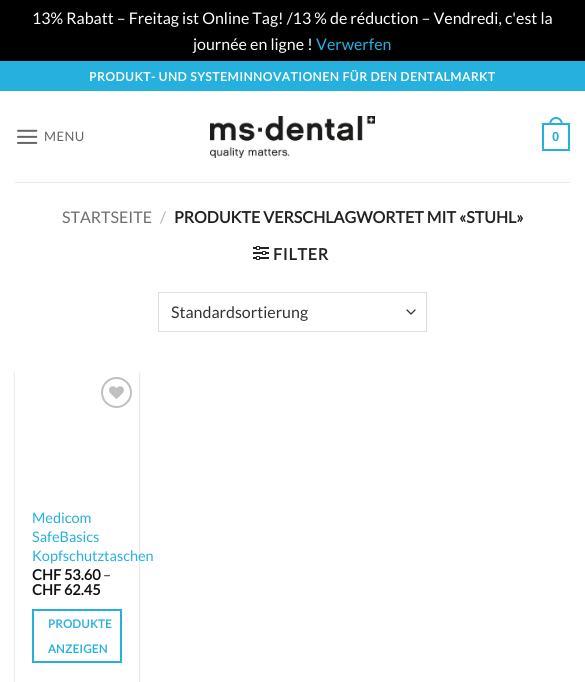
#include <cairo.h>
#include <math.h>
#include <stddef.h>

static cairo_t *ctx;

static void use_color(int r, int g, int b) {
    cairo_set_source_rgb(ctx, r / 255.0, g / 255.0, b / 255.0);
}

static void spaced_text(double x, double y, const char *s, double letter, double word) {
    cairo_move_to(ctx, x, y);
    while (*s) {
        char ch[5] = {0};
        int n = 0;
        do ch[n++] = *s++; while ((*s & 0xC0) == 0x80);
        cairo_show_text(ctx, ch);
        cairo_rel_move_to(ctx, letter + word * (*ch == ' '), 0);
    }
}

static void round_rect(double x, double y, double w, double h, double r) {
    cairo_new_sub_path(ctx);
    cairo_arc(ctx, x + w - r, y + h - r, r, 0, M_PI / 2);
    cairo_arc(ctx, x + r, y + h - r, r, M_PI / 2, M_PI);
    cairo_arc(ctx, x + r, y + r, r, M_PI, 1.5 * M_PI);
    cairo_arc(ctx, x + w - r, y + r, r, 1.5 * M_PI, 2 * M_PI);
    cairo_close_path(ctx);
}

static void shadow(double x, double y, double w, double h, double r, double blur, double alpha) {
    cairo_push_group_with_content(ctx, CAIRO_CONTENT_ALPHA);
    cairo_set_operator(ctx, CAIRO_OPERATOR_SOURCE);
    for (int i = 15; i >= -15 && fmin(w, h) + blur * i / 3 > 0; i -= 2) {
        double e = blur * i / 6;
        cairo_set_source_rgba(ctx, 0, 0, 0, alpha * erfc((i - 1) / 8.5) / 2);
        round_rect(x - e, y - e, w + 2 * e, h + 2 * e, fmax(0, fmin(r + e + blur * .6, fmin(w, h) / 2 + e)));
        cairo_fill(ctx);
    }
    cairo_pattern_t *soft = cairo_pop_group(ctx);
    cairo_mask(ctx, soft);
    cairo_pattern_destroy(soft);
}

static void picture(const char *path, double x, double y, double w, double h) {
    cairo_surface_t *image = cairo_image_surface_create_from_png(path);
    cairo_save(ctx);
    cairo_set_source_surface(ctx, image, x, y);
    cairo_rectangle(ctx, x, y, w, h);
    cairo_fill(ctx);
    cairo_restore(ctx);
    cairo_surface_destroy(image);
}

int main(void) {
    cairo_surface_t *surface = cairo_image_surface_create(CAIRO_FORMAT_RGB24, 585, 682);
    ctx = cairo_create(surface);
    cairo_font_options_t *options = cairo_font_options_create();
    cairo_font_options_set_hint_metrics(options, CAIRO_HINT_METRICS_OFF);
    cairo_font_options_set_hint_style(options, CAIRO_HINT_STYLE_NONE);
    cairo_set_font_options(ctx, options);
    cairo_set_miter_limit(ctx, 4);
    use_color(0, 0, 0);
    cairo_paint(ctx);
    cairo_select_font_face(ctx, "Lato", CAIRO_FONT_SLANT_NORMAL, CAIRO_FONT_WEIGHT_NORMAL);
    cairo_set_font_size(ctx, 16);
    use_color(255, 255, 255);
    cairo_move_to(ctx, 32, 24);
    cairo_show_text(ctx, "13% Rabatt – Freitag ist Online Tag! /13 % de réduction – Vendredi, c'est la");
    cairo_move_to(ctx, 193, 50);
    cairo_show_text(ctx, "journée en ligne !");
    use_color(37, 176, 222);
    cairo_move_to(ctx, 316, 50);
    cairo_show_text(ctx, "Verwerfen");
    use_color(255, 255, 255);
    cairo_rectangle(ctx, 0, 91, 585, 591);
    cairo_fill(ctx);
    use_color(37, 176, 222);
    cairo_rectangle(ctx, 0, 61, 585, 30);
    cairo_fill(ctx);
    cairo_select_font_face(ctx, "Lato", CAIRO_FONT_SLANT_NORMAL, CAIRO_FONT_WEIGHT_BOLD);
    cairo_set_font_size(ctx, 12);
    use_color(255, 255, 255);
    spaced_text(89, 81, "PRODUKT- UND SYSTEMINNOVATIONEN FÜR DEN DENTALMARKT", 0.6, 0);
    picture("img1.png", 17, 129, 21, 15);
    cairo_select_font_face(ctx, "Lato", CAIRO_FONT_SLANT_NORMAL, CAIRO_FONT_WEIGHT_NORMAL);
    cairo_set_font_size(ctx, 13);
    use_color(101, 101, 101);
    spaced_text(44, 141, "MENU", 0.5, 0);
    picture("img2.png", 210, 116, 165, 42);
    cairo_rectangle(ctx, 543, 124, 26, 26);
    use_color(37, 176, 222);
    cairo_stroke(ctx);
    cairo_set_fill_rule(ctx, CAIRO_FILL_RULE_EVEN_ODD);
    cairo_new_path(ctx);
    cairo_move_to(ctx, 556, 117);
    cairo_curve_to(ctx, 560.5, 117, 563, 121, 563, 125);
    cairo_line_to(ctx, 549, 125);
    cairo_curve_to(ctx, 549, 121, 551.5, 117, 556, 117);
    cairo_close_path(ctx);
    cairo_move_to(ctx, 556, 119);
    cairo_curve_to(ctx, 559.5, 119, 561, 122, 561, 125);
    cairo_line_to(ctx, 551, 125);
    cairo_curve_to(ctx, 551, 122, 552.5, 119, 556, 119);
    cairo_close_path(ctx);
    cairo_fill(ctx);
    cairo_select_font_face(ctx, "Liberation Sans", CAIRO_FONT_SLANT_NORMAL, CAIRO_FONT_WEIGHT_BOLD);
    cairo_move_to(ctx, 552, 141);
    cairo_show_text(ctx, "0");
    use_color(233, 233, 233);
    cairo_rectangle(ctx, 15, 182, 555, 1);
    cairo_fill(ctx);
    cairo_select_font_face(ctx, "Lato", CAIRO_FONT_SLANT_NORMAL, CAIRO_FONT_WEIGHT_NORMAL);
    cairo_set_font_size(ctx, 16);
    use_color(110, 110, 110);
    cairo_move_to(ctx, 62, 223);
    cairo_show_text(ctx, "STARTSEITE");
    use_color(178, 178, 178);
    cairo_move_to(ctx, 160, 223);
    cairo_show_text(ctx, "/");
    cairo_select_font_face(ctx, "Lato", CAIRO_FONT_SLANT_NORMAL, CAIRO_FONT_WEIGHT_BOLD);
    use_color(34, 34, 34);
    cairo_move_to(ctx, 174, 223);
    cairo_show_text(ctx, "PRODUKTE VERSCHLAGWORTET MIT «STUHL»");
    picture("img3.png", 253, 246, 16, 14);
    spaced_text(273, 260, "FILTER", 0.75, 0);
    cairo_new_path(ctx);
    cairo_move_to(ctx, 407, 310);
    cairo_line_to(ctx, 411, 314);
    cairo_line_to(ctx, 415, 310);
    use_color(51, 51, 51);
    cairo_set_line_width(ctx, 1.3);
    cairo_set_line_cap(ctx, CAIRO_LINE_CAP_ROUND);
    cairo_set_line_join(ctx, CAIRO_LINE_JOIN_ROUND);
    cairo_stroke(ctx);
    cairo_rectangle(ctx, 158.5, 292.5, 268, 39);
    use_color(221, 221, 221);
    cairo_set_line_width(ctx, 1);
    cairo_set_line_cap(ctx, CAIRO_LINE_CAP_BUTT);
    cairo_set_line_join(ctx, CAIRO_LINE_JOIN_MITER);
    cairo_stroke(ctx);
    cairo_select_font_face(ctx, "Lato", CAIRO_FONT_SLANT_NORMAL, CAIRO_FONT_WEIGHT_NORMAL);
    use_color(51, 51, 51);
    cairo_move_to(ctx, 171, 318);
    cairo_show_text(ctx, "Standardsortierung");
    cairo_save(ctx);
    cairo_new_path(ctx);
    cairo_move_to(ctx, 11, 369);
    cairo_line_to(ctx, 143, 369);
    cairo_line_to(ctx, 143, 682);
    cairo_line_to(ctx, 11, 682);
    cairo_close_path(ctx);
    cairo_move_to(ctx, 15, 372);
    cairo_line_to(ctx, 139, 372);
    cairo_line_to(ctx, 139, 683);
    cairo_line_to(ctx, 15, 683);
    cairo_close_path(ctx);
    cairo_clip(ctx);
    use_color(0, 0, 0);
    shadow(15, 373, 124, 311, 0, 1, 0.24);
    cairo_restore(ctx);
    cairo_arc(ctx, 116.5, 392.5, 14.5, 0, 2 * M_PI);
    use_color(192, 192, 192);
    cairo_set_line_width(ctx, 2);
    cairo_stroke(ctx);
    picture("img4.png", 109, 386, 15, 13);
    cairo_set_font_size(ctx, 14.5);
    use_color(37, 176, 222);
    cairo_move_to(ctx, 32, 523);
    cairo_show_text(ctx, "Medicom");
    cairo_move_to(ctx, 32, 542);
    cairo_show_text(ctx, "SafeBasics");
    cairo_move_to(ctx, 32, 561);
    cairo_show_text(ctx, "Kopfschutztaschen");
    cairo_select_font_face(ctx, "Lato", CAIRO_FONT_SLANT_NORMAL, CAIRO_FONT_WEIGHT_BOLD);
    use_color(17, 17, 17);
    cairo_move_to(ctx, 32, 580);
    cairo_show_text(ctx, "CHF 53.60");
    cairo_select_font_face(ctx, "Lato", CAIRO_FONT_SLANT_NORMAL, CAIRO_FONT_WEIGHT_NORMAL);
    use_color(34, 34, 34);
    cairo_move_to(ctx, 103, 580);
    cairo_show_text(ctx, "–");
    cairo_select_font_face(ctx, "Lato", CAIRO_FONT_SLANT_NORMAL, CAIRO_FONT_WEIGHT_BOLD);
    use_color(17, 17, 17);
    cairo_move_to(ctx, 32, 595);
    cairo_show_text(ctx, "CHF 62.45");
    cairo_rectangle(ctx, 33, 610, 88, 52);
    use_color(37, 176, 222);
    cairo_stroke(ctx);
    cairo_set_font_size(ctx, 11.5);
    spaced_text(48, 628, "PRODUKTE", 0.25, 0);
    spaced_text(48, 653, "ANZEIGEN", 0.25, 0);
    cairo_surface_write_to_png(surface, "result.png");
    cairo_font_options_destroy(options);
    cairo_destroy(ctx);
    cairo_surface_destroy(surface);
    return 0;
}
